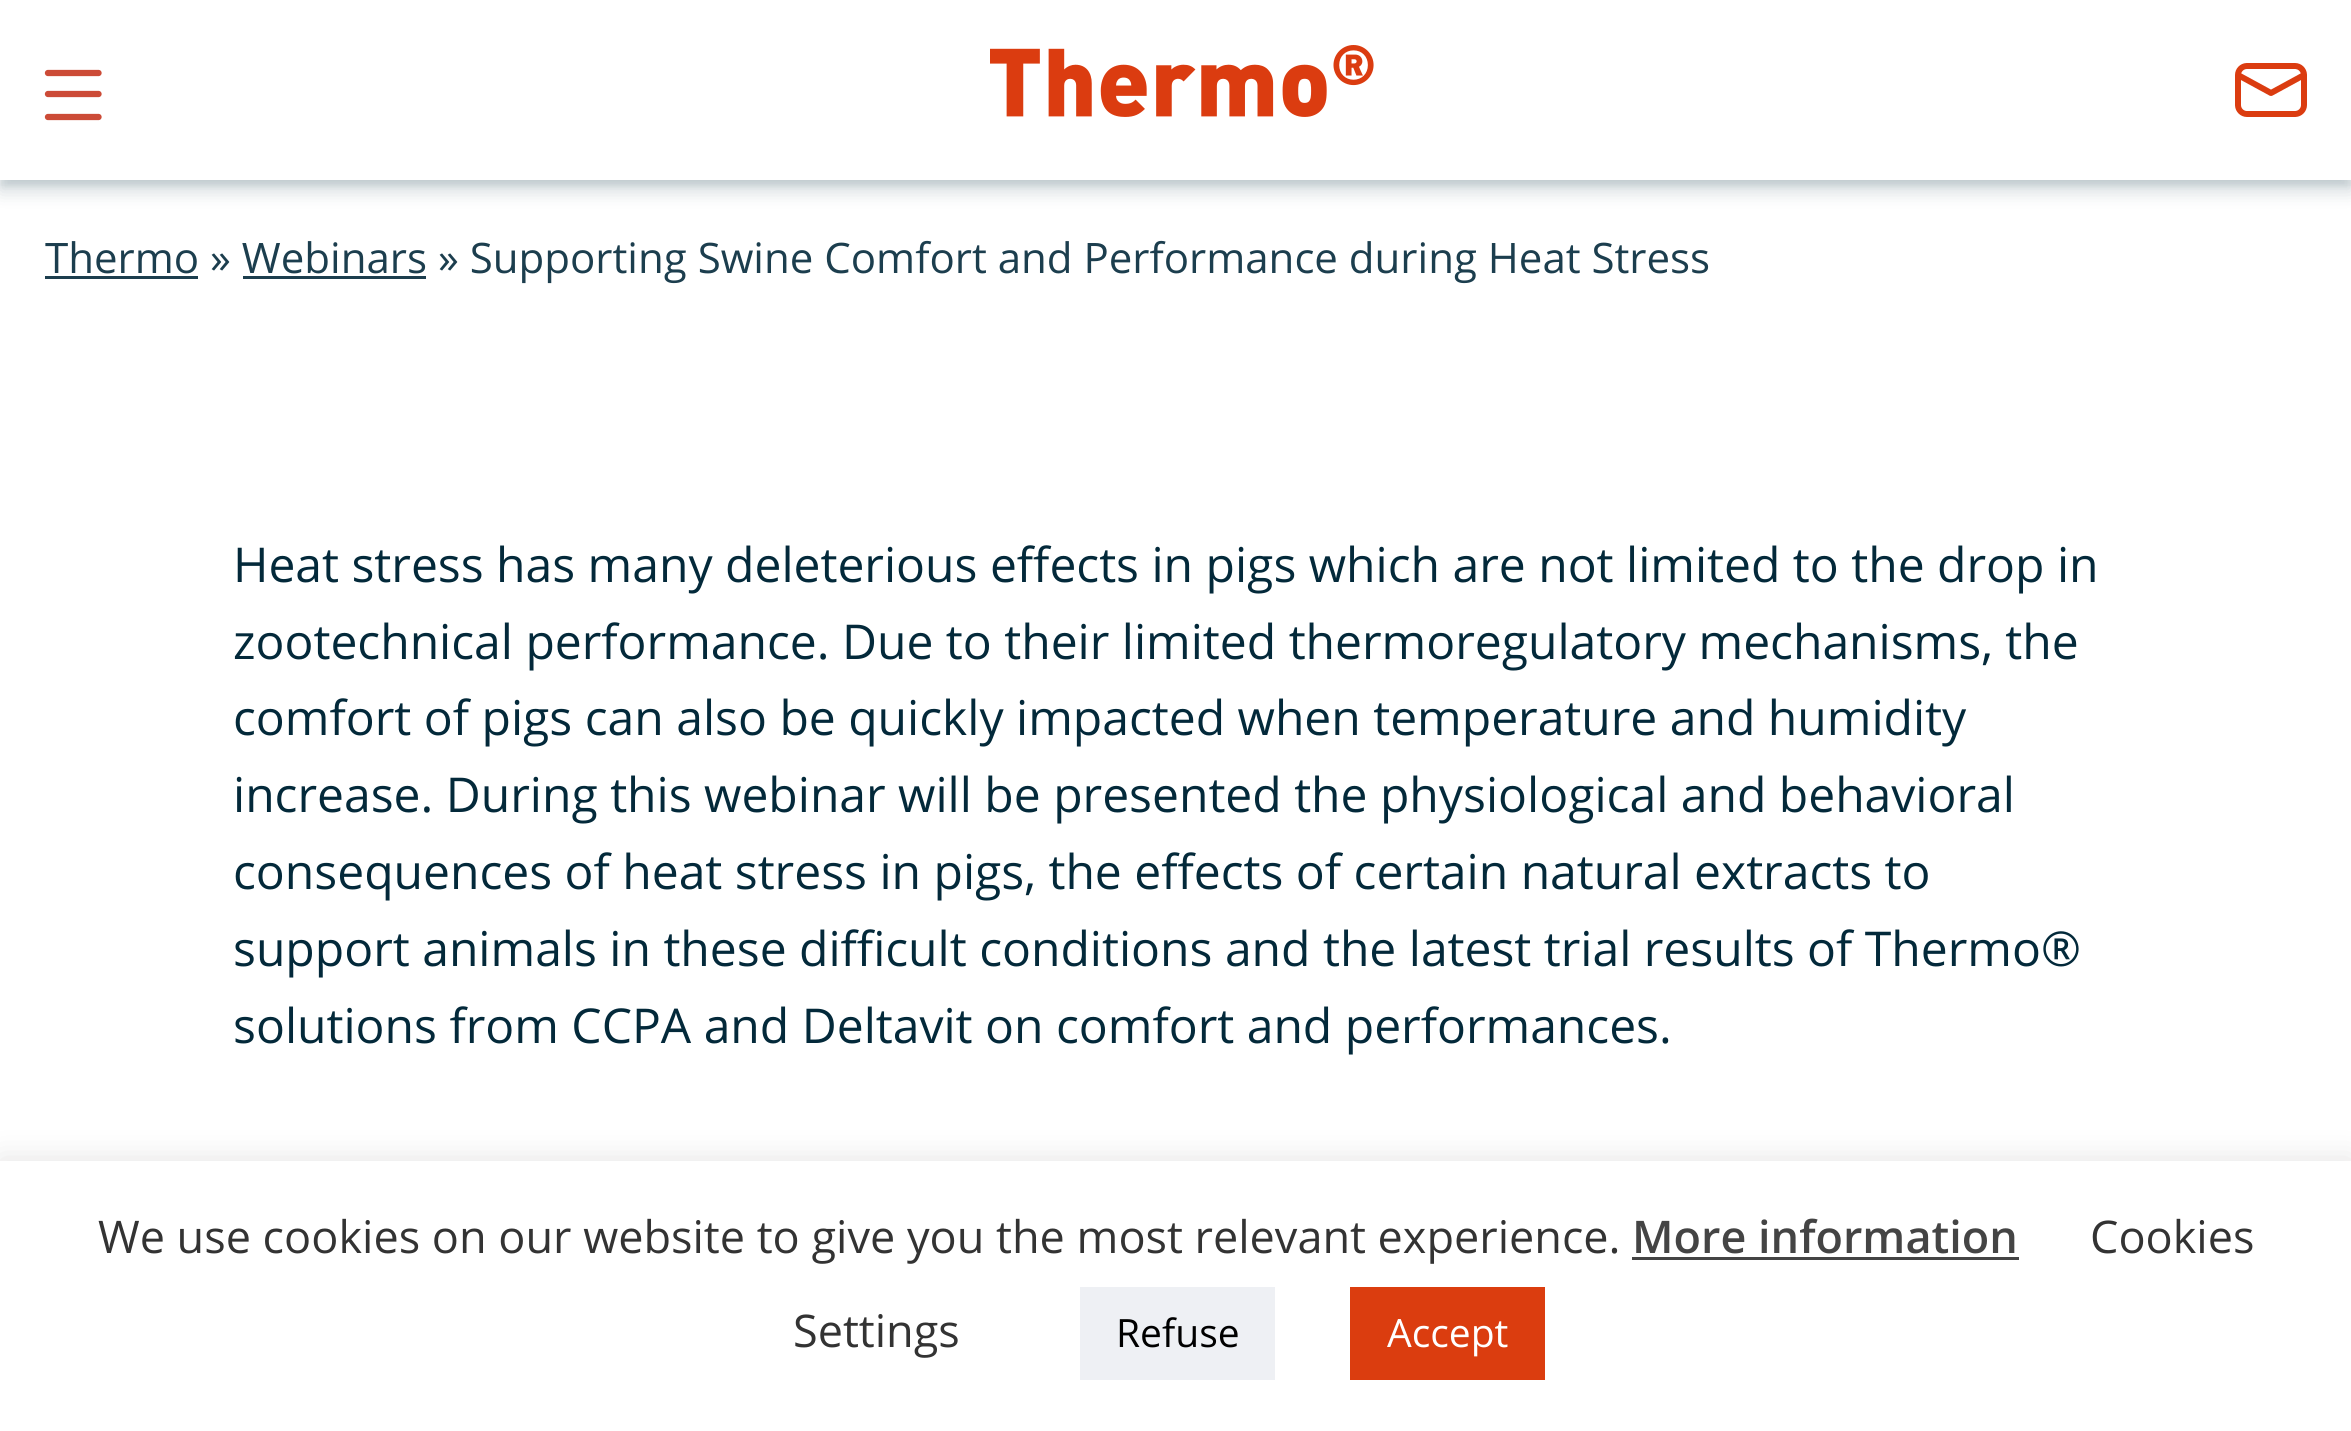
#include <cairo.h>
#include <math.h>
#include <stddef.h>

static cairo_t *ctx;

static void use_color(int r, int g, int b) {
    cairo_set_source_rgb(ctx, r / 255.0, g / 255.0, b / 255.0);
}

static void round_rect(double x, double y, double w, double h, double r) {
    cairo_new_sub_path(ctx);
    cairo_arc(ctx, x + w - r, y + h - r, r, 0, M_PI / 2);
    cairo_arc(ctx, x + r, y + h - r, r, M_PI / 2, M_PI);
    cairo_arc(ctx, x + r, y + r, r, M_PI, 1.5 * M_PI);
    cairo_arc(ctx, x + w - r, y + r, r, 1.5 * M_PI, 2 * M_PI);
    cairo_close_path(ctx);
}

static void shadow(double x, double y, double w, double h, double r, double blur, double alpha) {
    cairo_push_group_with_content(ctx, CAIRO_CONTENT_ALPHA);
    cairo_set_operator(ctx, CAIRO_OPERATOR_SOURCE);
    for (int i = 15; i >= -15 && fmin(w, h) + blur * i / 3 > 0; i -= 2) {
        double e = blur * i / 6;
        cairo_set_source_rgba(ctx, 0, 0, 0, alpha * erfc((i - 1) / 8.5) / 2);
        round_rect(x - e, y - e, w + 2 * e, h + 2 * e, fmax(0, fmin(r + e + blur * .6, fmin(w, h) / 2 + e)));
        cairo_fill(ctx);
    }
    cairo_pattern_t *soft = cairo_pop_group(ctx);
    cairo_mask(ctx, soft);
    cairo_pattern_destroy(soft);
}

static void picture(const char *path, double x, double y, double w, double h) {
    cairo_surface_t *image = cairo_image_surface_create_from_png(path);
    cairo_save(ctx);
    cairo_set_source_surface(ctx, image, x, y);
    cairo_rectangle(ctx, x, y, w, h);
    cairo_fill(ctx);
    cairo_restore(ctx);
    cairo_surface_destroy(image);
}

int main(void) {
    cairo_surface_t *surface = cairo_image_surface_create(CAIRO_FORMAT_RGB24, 2351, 1431);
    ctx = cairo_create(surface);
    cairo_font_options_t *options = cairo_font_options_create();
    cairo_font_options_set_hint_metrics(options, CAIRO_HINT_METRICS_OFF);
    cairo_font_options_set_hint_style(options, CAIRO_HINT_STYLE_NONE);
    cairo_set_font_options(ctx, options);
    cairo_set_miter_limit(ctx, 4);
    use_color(255, 255, 255);
    cairo_paint(ctx);
    use_color(3, 41, 58);
    shadow(0, 6, 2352, 180, 0, 3, 0.1);
    shadow(0, 12, 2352, 180, 0, 9, 0.16);
    use_color(255, 255, 255);
    cairo_rectangle(ctx, 0, 0, 2351, 180);
    cairo_fill(ctx);
    cairo_new_path(ctx);
    cairo_move_to(ctx, 48, 73);
    cairo_line_to(ctx, 98.5, 73);
    cairo_move_to(ctx, 48, 94);
    cairo_line_to(ctx, 98.5, 94);
    cairo_move_to(ctx, 48, 117);
    cairo_line_to(ctx, 98.5, 117);
    use_color(204, 75, 55);
    cairo_set_line_width(ctx, 6.3);
    cairo_set_line_cap(ctx, CAIRO_LINE_CAP_ROUND);
    cairo_stroke(ctx);
    picture("img1.png", 990, 45, 384, 72);
    picture("img2.png", 2235, 63, 72, 54);
    use_color(28, 62, 78);
    cairo_rectangle(ctx, 45, 276, 153, 3);
    cairo_fill(ctx);
    cairo_select_font_face(ctx, "Open Sans", CAIRO_FONT_SLANT_NORMAL, CAIRO_FONT_WEIGHT_NORMAL);
    cairo_set_font_size(ctx, 42);
    cairo_move_to(ctx, 45, 273);
    cairo_show_text(ctx, "Thermo » Webinars » Supporting Swine Comfort and Performance during Heat Stress");
    cairo_rectangle(ctx, 243, 276, 183, 3);
    cairo_fill(ctx);
    cairo_set_font_size(ctx, 48);
    use_color(3, 41, 58);
    cairo_move_to(ctx, 233, 582);
    cairo_show_text(ctx, "Heat stress has many deleterious effects in pigs which are not limited to the drop in");
    cairo_move_to(ctx, 233, 659);
    cairo_show_text(ctx, "zootechnical performance. Due to their limited thermoregulatory mechanisms, the");
    cairo_move_to(ctx, 233, 735);
    cairo_show_text(ctx, "comfort of pigs can also be quickly impacted when temperature and humidity");
    cairo_move_to(ctx, 233, 812);
    cairo_show_text(ctx, "increase. During this webinar will be presented the physiological and behavioral");
    cairo_move_to(ctx, 233, 889);
    cairo_show_text(ctx, "consequences of heat stress in pigs, the effects of certain natural extracts to");
    cairo_move_to(ctx, 233, 966);
    cairo_show_text(ctx, "support animals in these difficult conditions and the latest trial results of Thermo®");
    cairo_move_to(ctx, 233, 1043);
    cairo_show_text(ctx, "solutions from CCPA and Deltavit on comfort and performances.");
    use_color(172, 171, 171);
    shadow(0, 1158, 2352, 270, 0, 15, 0.3);
    use_color(255, 255, 255);
    cairo_rectangle(ctx, 0, 1161, 2351, 270);
    cairo_fill(ctx);
    cairo_set_font_size(ctx, 45);
    use_color(51, 51, 51);
    cairo_move_to(ctx, 98, 1253);
    cairo_show_text(ctx, "We use cookies on our website to give you the most relevant experience.");
    cairo_select_font_face(ctx, "Open Sans SemiBold", CAIRO_FONT_SLANT_NORMAL, CAIRO_FONT_WEIGHT_NORMAL);
    use_color(68, 68, 68);
    cairo_move_to(ctx, 1632, 1253);
    cairo_show_text(ctx, "More information");
    cairo_rectangle(ctx, 1632, 1257, 387, 3);
    cairo_fill(ctx);
    cairo_select_font_face(ctx, "Open Sans", CAIRO_FONT_SLANT_NORMAL, CAIRO_FONT_WEIGHT_NORMAL);
    use_color(51, 51, 51);
    cairo_move_to(ctx, 2090, 1253);
    cairo_show_text(ctx, "Cookies");
    cairo_move_to(ctx, 793, 1347);
    cairo_show_text(ctx, "Settings");
    use_color(238, 240, 244);
    cairo_rectangle(ctx, 1080, 1287, 195, 93);
    cairo_fill(ctx);
    cairo_set_font_size(ctx, 39);
    use_color(0, 0, 0);
    cairo_move_to(ctx, 1116, 1347);
    cairo_show_text(ctx, "Refuse");
    use_color(219, 61, 15);
    cairo_rectangle(ctx, 1350, 1287, 195, 93);
    cairo_fill(ctx);
    use_color(255, 255, 255);
    cairo_move_to(ctx, 1387, 1347);
    cairo_show_text(ctx, "Accept");
    cairo_surface_write_to_png(surface, "result.png");
    cairo_font_options_destroy(options);
    cairo_destroy(ctx);
    cairo_surface_destroy(surface);
    return 0;
}
